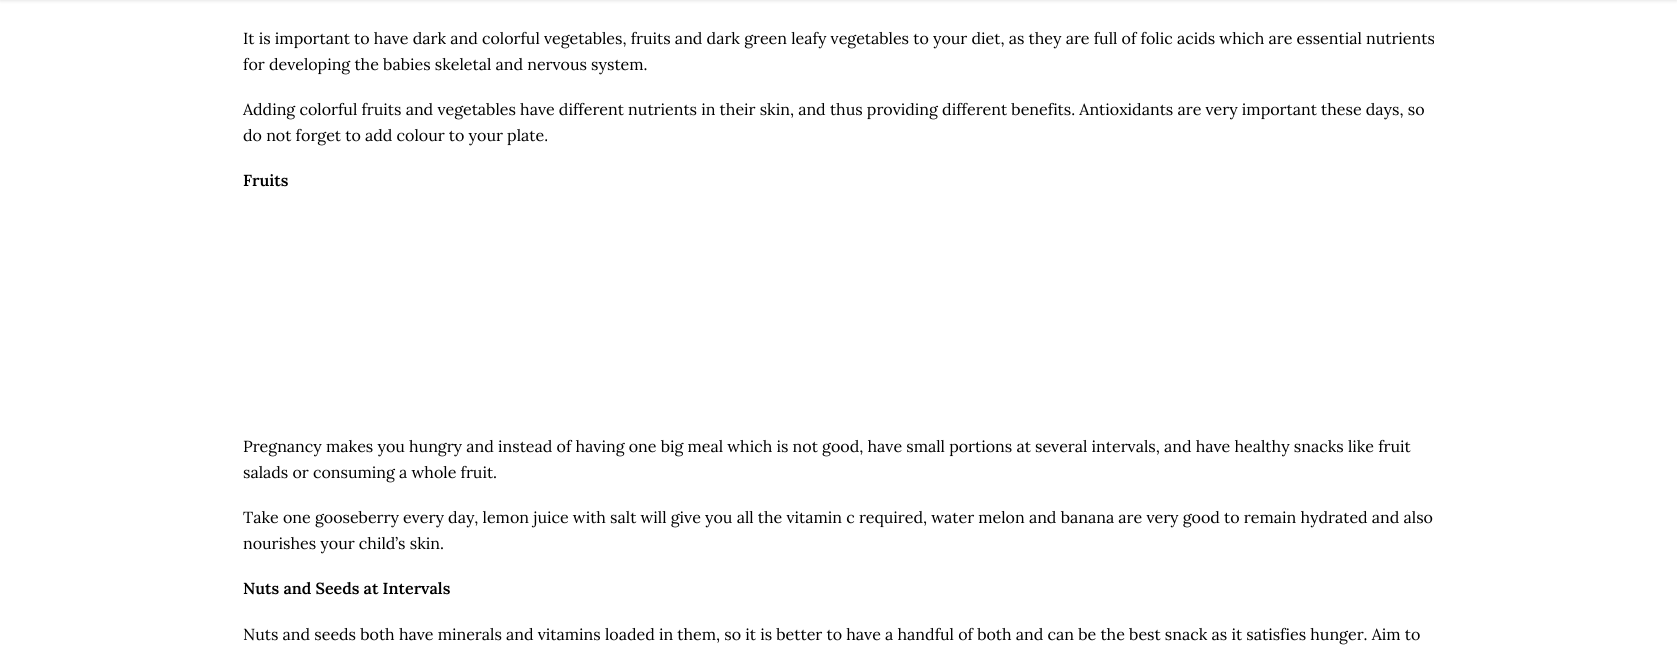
#include <cairo.h>
#include <math.h>
#include <stddef.h>

static cairo_t *ctx;

static void use_color(int r, int g, int b) {
    cairo_set_source_rgb(ctx, r / 255.0, g / 255.0, b / 255.0);
}

static void round_rect(double x, double y, double w, double h, double r) {
    cairo_new_sub_path(ctx);
    cairo_arc(ctx, x + w - r, y + h - r, r, 0, M_PI / 2);
    cairo_arc(ctx, x + r, y + h - r, r, M_PI / 2, M_PI);
    cairo_arc(ctx, x + r, y + r, r, M_PI, 1.5 * M_PI);
    cairo_arc(ctx, x + w - r, y + r, r, 1.5 * M_PI, 2 * M_PI);
    cairo_close_path(ctx);
}

static void shadow(double x, double y, double w, double h, double r, double blur, double alpha) {
    cairo_push_group_with_content(ctx, CAIRO_CONTENT_ALPHA);
    cairo_set_operator(ctx, CAIRO_OPERATOR_SOURCE);
    for (int i = 15; i >= -15 && fmin(w, h) + blur * i / 3 > 0; i -= 2) {
        double e = blur * i / 6;
        cairo_set_source_rgba(ctx, 0, 0, 0, alpha * erfc((i - 1) / 8.5) / 2);
        round_rect(x - e, y - e, w + 2 * e, h + 2 * e, fmax(0, fmin(r + e + blur * .6, fmin(w, h) / 2 + e)));
        cairo_fill(ctx);
    }
    cairo_pattern_t *soft = cairo_pop_group(ctx);
    cairo_mask(ctx, soft);
    cairo_pattern_destroy(soft);
}

int main(void) {
    cairo_surface_t *surface = cairo_image_surface_create(CAIRO_FORMAT_RGB24, 1677, 659);
    ctx = cairo_create(surface);
    cairo_font_options_t *options = cairo_font_options_create();
    cairo_font_options_set_hint_metrics(options, CAIRO_HINT_METRICS_OFF);
    cairo_font_options_set_hint_style(options, CAIRO_HINT_STYLE_NONE);
    cairo_set_font_options(ctx, options);
    cairo_set_miter_limit(ctx, 4);
    use_color(255, 255, 255);
    cairo_paint(ctx);
    use_color(0, 0, 0);
    shadow(0, -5, 1677, 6, 0, 1.5, 0.1);
    cairo_select_font_face(ctx, "Lora", CAIRO_FONT_SLANT_NORMAL, CAIRO_FONT_WEIGHT_NORMAL);
    cairo_set_font_size(ctx, 16);
    use_color(0, 0, 0);
    cairo_move_to(ctx, 243, 44);
    cairo_show_text(ctx, "It is important to have dark and colorful vegetables, fruits and dark green leafy vegetables to your diet, as they are full of folic acids which are essential nutrients");
    cairo_move_to(ctx, 243, 70);
    cairo_show_text(ctx, "for developing the babies skeletal and nervous system.");
    cairo_move_to(ctx, 243, 115);
    cairo_show_text(ctx, "Adding colorful fruits and vegetables have different nutrients in their skin, and thus providing different benefits. Antioxidants are very important these days, so");
    cairo_move_to(ctx, 243, 141);
    cairo_show_text(ctx, "do not forget to add colour to your plate.");
    cairo_select_font_face(ctx, "Lora SemiBold", CAIRO_FONT_SLANT_NORMAL, CAIRO_FONT_WEIGHT_NORMAL);
    cairo_move_to(ctx, 243, 186);
    cairo_show_text(ctx, "Fruits");
    cairo_select_font_face(ctx, "Lora", CAIRO_FONT_SLANT_NORMAL, CAIRO_FONT_WEIGHT_NORMAL);
    cairo_move_to(ctx, 243, 452);
    cairo_show_text(ctx, "Pregnancy makes you hungry and instead of having one big meal which is not good, have small portions at several intervals, and have healthy snacks like fruit");
    cairo_move_to(ctx, 243, 478);
    cairo_show_text(ctx, "salads or consuming a whole fruit.");
    cairo_move_to(ctx, 243, 523);
    cairo_show_text(ctx, "Take one gooseberry every day, lemon juice with salt will give you all the vitamin c required, water melon and banana are very good to remain hydrated and also");
    cairo_move_to(ctx, 243, 549);
    cairo_show_text(ctx, "nourishes your child’s skin.");
    cairo_select_font_face(ctx, "Lora SemiBold", CAIRO_FONT_SLANT_NORMAL, CAIRO_FONT_WEIGHT_NORMAL);
    cairo_move_to(ctx, 243, 594);
    cairo_show_text(ctx, "Nuts and Seeds at Intervals");
    cairo_select_font_face(ctx, "Lora", CAIRO_FONT_SLANT_NORMAL, CAIRO_FONT_WEIGHT_NORMAL);
    cairo_move_to(ctx, 243, 640);
    cairo_show_text(ctx, "Nuts and seeds both have minerals and vitamins loaded in them, so it is better to have a handful of both and can be the best snack as it satisfies hunger. Aim to");
    cairo_surface_write_to_png(surface, "result.png");
    cairo_font_options_destroy(options);
    cairo_destroy(ctx);
    cairo_surface_destroy(surface);
    return 0;
}
